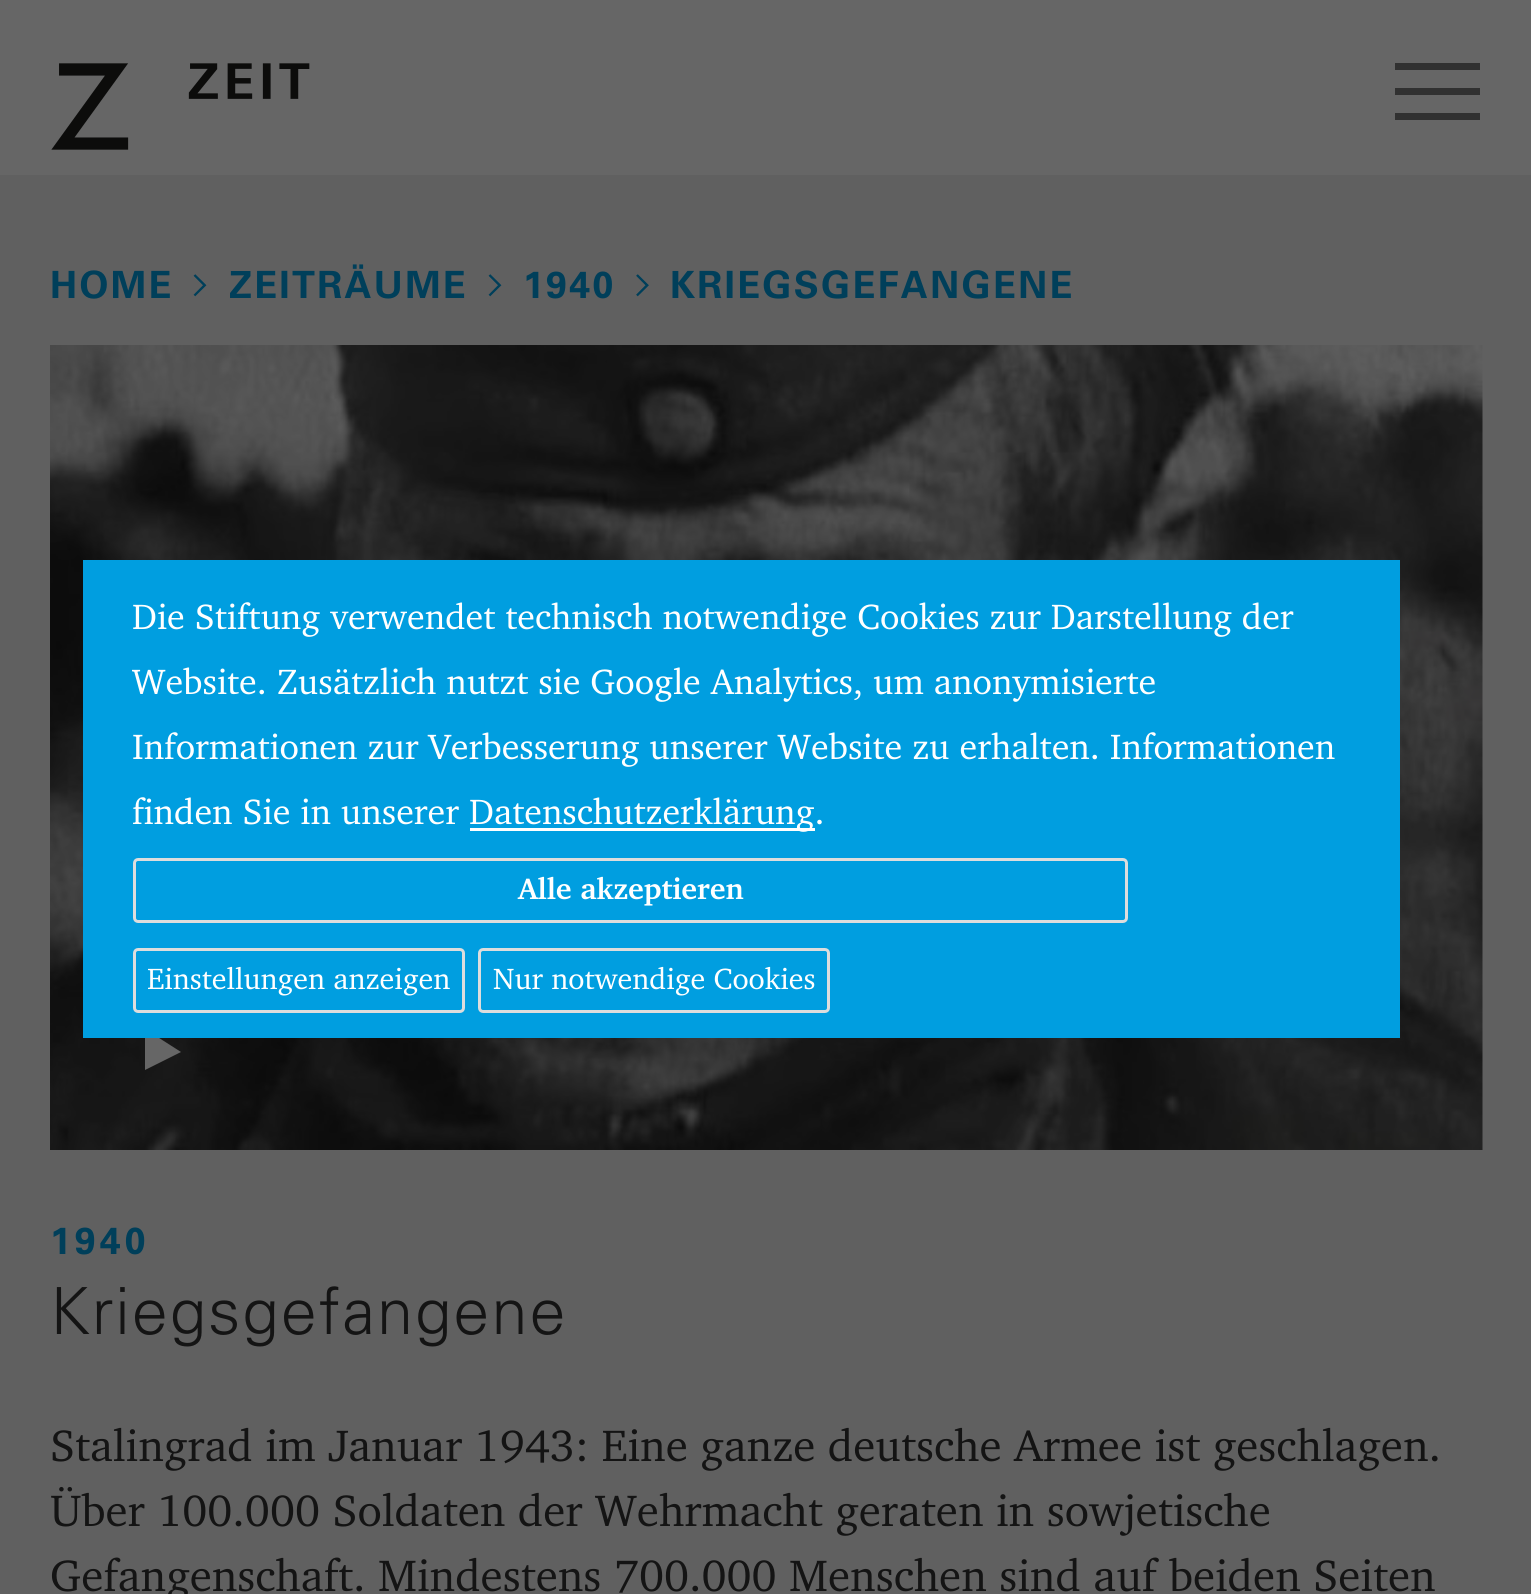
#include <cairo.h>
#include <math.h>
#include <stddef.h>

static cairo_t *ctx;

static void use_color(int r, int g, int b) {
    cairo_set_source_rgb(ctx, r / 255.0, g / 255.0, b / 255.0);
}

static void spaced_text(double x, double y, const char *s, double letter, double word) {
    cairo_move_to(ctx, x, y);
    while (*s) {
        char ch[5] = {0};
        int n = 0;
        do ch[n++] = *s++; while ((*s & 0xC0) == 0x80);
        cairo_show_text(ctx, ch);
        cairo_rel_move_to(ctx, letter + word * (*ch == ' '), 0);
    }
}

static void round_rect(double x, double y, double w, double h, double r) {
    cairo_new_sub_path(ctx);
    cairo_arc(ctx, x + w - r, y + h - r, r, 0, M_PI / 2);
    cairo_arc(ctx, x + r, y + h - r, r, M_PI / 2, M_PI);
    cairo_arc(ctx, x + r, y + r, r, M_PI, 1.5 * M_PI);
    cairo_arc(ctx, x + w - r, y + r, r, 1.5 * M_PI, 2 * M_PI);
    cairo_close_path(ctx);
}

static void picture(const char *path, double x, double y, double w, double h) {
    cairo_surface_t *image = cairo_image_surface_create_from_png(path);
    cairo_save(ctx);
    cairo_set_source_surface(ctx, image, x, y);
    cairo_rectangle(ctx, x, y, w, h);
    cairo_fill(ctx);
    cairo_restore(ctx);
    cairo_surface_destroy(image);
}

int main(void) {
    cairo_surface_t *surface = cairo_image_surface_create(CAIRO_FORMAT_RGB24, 1531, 1594);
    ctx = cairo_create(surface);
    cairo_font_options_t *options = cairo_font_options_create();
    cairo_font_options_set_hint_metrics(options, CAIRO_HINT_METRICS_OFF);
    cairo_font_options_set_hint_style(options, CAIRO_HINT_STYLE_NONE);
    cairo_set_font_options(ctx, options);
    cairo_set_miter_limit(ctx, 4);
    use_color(102, 102, 102);
    cairo_paint(ctx);
    picture("img1.png", 51, 63, 259, 87);
    use_color(49, 49, 49);
    cairo_rectangle(ctx, 1395, 63, 85, 7);
    cairo_fill(ctx);
    cairo_rectangle(ctx, 1395, 88, 85, 7);
    cairo_fill(ctx);
    cairo_rectangle(ctx, 1395, 113, 85, 7);
    cairo_fill(ctx);
    use_color(96, 96, 96);
    cairo_rectangle(ctx, 0, 175, 1531, 1419);
    cairo_fill(ctx);
    cairo_select_font_face(ctx, "Univers", CAIRO_FONT_SLANT_NORMAL, CAIRO_FONT_WEIGHT_BOLD);
    cairo_set_font_size(ctx, 37.5);
    use_color(0, 63, 90);
    spaced_text(50, 298, "HOME", 2.25, 0);
    picture("img2.png", 193, 274, 14, 23);
    spaced_text(229, 298, "ZEITRÄUME", 2.25, 0);
    picture("img2.png", 488, 274, 14, 23);
    spaced_text(523, 298, "1940", 2.25, 0);
    picture("img3.png", 636, 274, 13, 23);
    spaced_text(670, 298, "KRIEGSGEFANGENE", 2.25, 0);
    picture("img4.png", 50, 345, 1433, 805);
    use_color(102, 102, 102);
    cairo_new_path(ctx);
    cairo_move_to(ctx, 145, 1029);
    cairo_line_to(ctx, 181, 1052);
    cairo_line_to(ctx, 145, 1070);
    cairo_fill(ctx);
    use_color(0, 63, 90);
    spaced_text(50, 1254, "1940", 4, 0);
    cairo_select_font_face(ctx, "Univers Light", CAIRO_FONT_SLANT_NORMAL, CAIRO_FONT_WEIGHT_NORMAL);
    cairo_set_font_size(ctx, 65);
    use_color(20, 20, 20);
    spaced_text(50, 1334, "Kriegsgefangene", 2, 0);
    cairo_select_font_face(ctx, "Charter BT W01", CAIRO_FONT_SLANT_NORMAL, CAIRO_FONT_WEIGHT_NORMAL);
    cairo_set_font_size(ctx, 45);
    cairo_move_to(ctx, 50, 1461);
    cairo_show_text(ctx, "Stalingrad im Januar 1943: Eine ganze deutsche Armee ist geschlagen.");
    cairo_move_to(ctx, 50, 1526);
    cairo_show_text(ctx, "Über 100.000 Soldaten der Wehrmacht geraten in sowjetische");
    cairo_move_to(ctx, 50, 1591);
    cairo_show_text(ctx, "Gefangenschaft. Mindestens 700.000 Menschen sind auf beiden Seiten");
    use_color(0, 158, 224);
    cairo_rectangle(ctx, 83, 560, 1317, 478);
    cairo_fill(ctx);
    cairo_set_font_size(ctx, 36);
    use_color(255, 255, 255);
    cairo_move_to(ctx, 132, 629);
    cairo_show_text(ctx, "Die Stiftung verwendet technisch notwendige Cookies zur Darstellung der");
    cairo_move_to(ctx, 132, 694);
    cairo_show_text(ctx, "Website. Zusätzlich nutzt sie Google Analytics, um anonymisierte");
    cairo_move_to(ctx, 132, 759);
    cairo_show_text(ctx, "Informationen zur Verbesserung unserer Website zu erhalten. Informationen");
    cairo_move_to(ctx, 132, 824);
    cairo_show_text(ctx, "finden Sie in unserer");
    cairo_rectangle(ctx, 470, 828, 345, 3);
    cairo_fill(ctx);
    cairo_move_to(ctx, 469, 824);
    cairo_show_text(ctx, "Datenschutzerklärung.");
    round_rect(134.5, 859.5, 992, 62, 3.5);
    use_color(221, 221, 221);
    cairo_set_line_width(ctx, 3);
    cairo_stroke(ctx);
    cairo_select_font_face(ctx, "Charter BT W01", CAIRO_FONT_SLANT_NORMAL, CAIRO_FONT_WEIGHT_BOLD);
    cairo_set_font_size(ctx, 30);
    use_color(255, 255, 255);
    cairo_move_to(ctx, 518, 899);
    cairo_show_text(ctx, "Alle akzeptieren");
    round_rect(134.5, 949.5, 329, 62, 3.5);
    use_color(221, 221, 221);
    cairo_stroke(ctx);
    cairo_select_font_face(ctx, "Charter BT W01", CAIRO_FONT_SLANT_NORMAL, CAIRO_FONT_WEIGHT_NORMAL);
    use_color(255, 255, 255);
    cairo_move_to(ctx, 147, 989);
    cairo_show_text(ctx, "Einstellungen anzeigen");
    round_rect(479.5, 949.5, 349, 62, 3.5);
    use_color(221, 221, 221);
    cairo_stroke(ctx);
    use_color(255, 255, 255);
    cairo_move_to(ctx, 493, 989);
    cairo_show_text(ctx, "Nur notwendige Cookies");
    cairo_surface_write_to_png(surface, "result.png");
    cairo_font_options_destroy(options);
    cairo_destroy(ctx);
    cairo_surface_destroy(surface);
    return 0;
}
